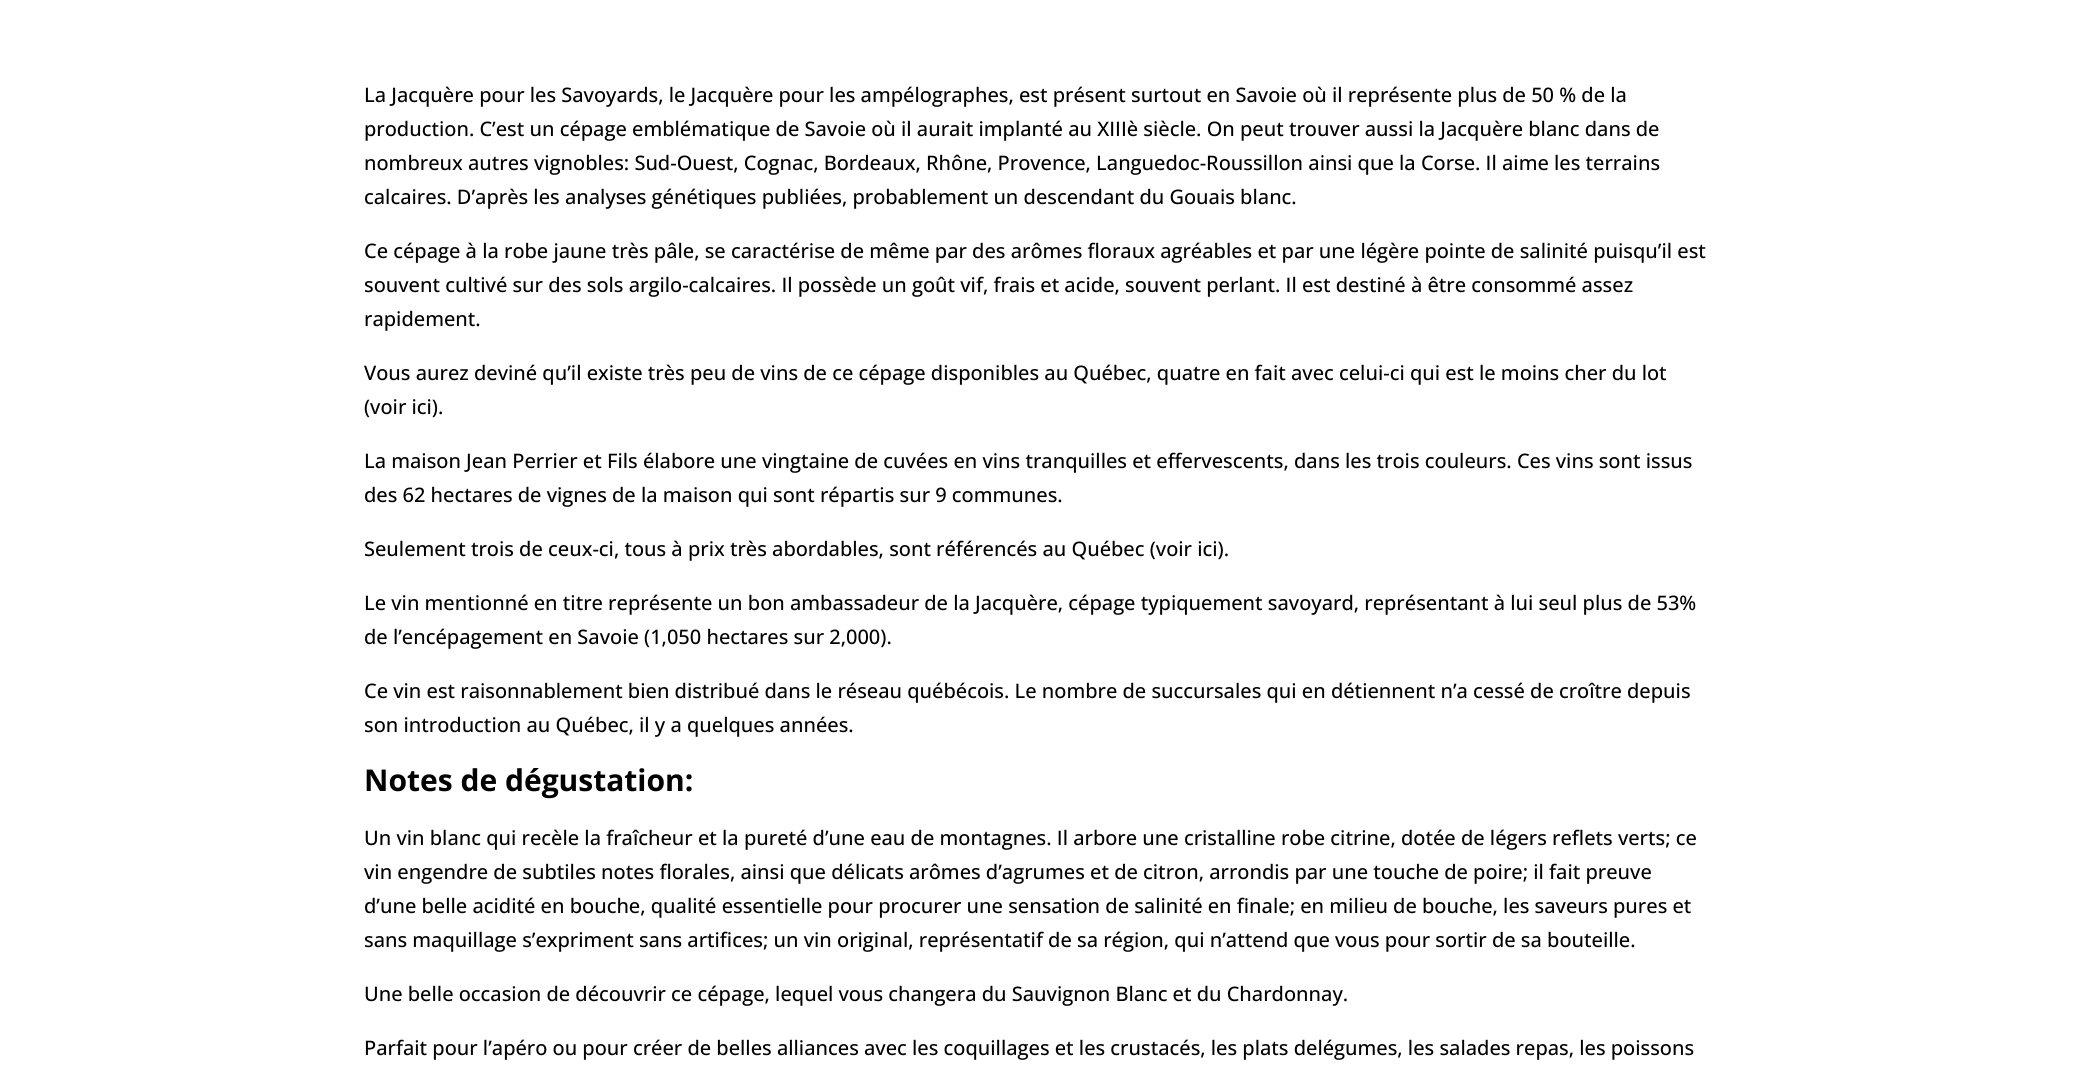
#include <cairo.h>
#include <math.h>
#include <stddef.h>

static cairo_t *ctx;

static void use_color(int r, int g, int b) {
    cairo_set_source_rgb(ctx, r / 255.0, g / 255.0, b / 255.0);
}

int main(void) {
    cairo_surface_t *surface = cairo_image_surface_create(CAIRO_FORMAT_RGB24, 2078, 1072);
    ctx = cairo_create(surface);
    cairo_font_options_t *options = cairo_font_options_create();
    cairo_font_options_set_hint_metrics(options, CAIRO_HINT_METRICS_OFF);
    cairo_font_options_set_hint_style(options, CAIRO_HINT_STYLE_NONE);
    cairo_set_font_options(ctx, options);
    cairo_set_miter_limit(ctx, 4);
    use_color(255, 255, 255);
    cairo_paint(ctx);
    cairo_select_font_face(ctx, "Open Sans Medium", CAIRO_FONT_SLANT_NORMAL, CAIRO_FONT_WEIGHT_NORMAL);
    cairo_set_font_size(ctx, 20);
    use_color(0, 0, 0);
    cairo_move_to(ctx, 364, 102);
    cairo_show_text(ctx, "La Jacquère pour les Savoyards, le Jacquère pour les ampélographes, est présent surtout en Savoie où il représente plus de 50 % de la");
    cairo_move_to(ctx, 364, 136);
    cairo_show_text(ctx, "production. C’est un cépage emblématique de Savoie où il aurait implanté au XIIIè siècle. On peut trouver aussi la Jacquère blanc dans de");
    cairo_move_to(ctx, 364, 170);
    cairo_show_text(ctx, "nombreux autres vignobles: Sud-Ouest, Cognac, Bordeaux, Rhône, Provence, Languedoc-Roussillon ainsi que la Corse. Il aime les terrains");
    cairo_move_to(ctx, 364, 204);
    cairo_show_text(ctx, "calcaires. D’après les analyses génétiques publiées, probablement un descendant du Gouais blanc.");
    cairo_move_to(ctx, 364, 258);
    cairo_show_text(ctx, "Ce cépage à la robe jaune très pâle, se caractérise de même par des arômes floraux agréables et par une légère pointe de salinité puisqu’il est");
    cairo_move_to(ctx, 364, 292);
    cairo_show_text(ctx, "souvent cultivé sur des sols argilo-calcaires. Il possède un goût vif, frais et acide, souvent perlant. Il est destiné à être consommé assez");
    cairo_move_to(ctx, 364, 326);
    cairo_show_text(ctx, "rapidement.");
    cairo_move_to(ctx, 364, 380);
    cairo_show_text(ctx, "Vous aurez deviné qu’il existe très peu de vins de ce cépage disponibles au Québec, quatre en fait avec celui-ci qui est le moins cher du lot");
    cairo_move_to(ctx, 364, 414);
    cairo_show_text(ctx, "(voir ici).");
    cairo_move_to(ctx, 364, 468);
    cairo_show_text(ctx, "La maison Jean Perrier et Fils élabore une vingtaine de cuvées en vins tranquilles et effervescents, dans les trois couleurs. Ces vins sont issus");
    cairo_move_to(ctx, 364, 502);
    cairo_show_text(ctx, "des 62 hectares de vignes de la maison qui sont répartis sur 9 communes.");
    cairo_move_to(ctx, 364, 556);
    cairo_show_text(ctx, "Seulement trois de ceux-ci, tous à prix très abordables, sont référencés au Québec (voir ici).");
    cairo_move_to(ctx, 364, 610);
    cairo_show_text(ctx, "Le vin mentionné en titre représente un bon ambassadeur de la Jacquère, cépage typiquement savoyard, représentant à lui seul plus de 53%");
    cairo_move_to(ctx, 364, 644);
    cairo_show_text(ctx, "de l’encépagement en Savoie (1,050 hectares sur 2,000).");
    cairo_move_to(ctx, 364, 698);
    cairo_show_text(ctx, "Ce vin est raisonnablement bien distribué dans le réseau québécois. Le nombre de succursales qui en détiennent n’a cessé de croître depuis");
    cairo_move_to(ctx, 364, 732);
    cairo_show_text(ctx, "son introduction au Québec, il y a quelques années.");
    cairo_select_font_face(ctx, "Open Sans", CAIRO_FONT_SLANT_NORMAL, CAIRO_FONT_WEIGHT_BOLD);
    cairo_set_font_size(ctx, 30);
    cairo_move_to(ctx, 364, 791);
    cairo_show_text(ctx, "Notes de dégustation:");
    cairo_select_font_face(ctx, "Open Sans Medium", CAIRO_FONT_SLANT_NORMAL, CAIRO_FONT_WEIGHT_NORMAL);
    cairo_set_font_size(ctx, 20);
    cairo_move_to(ctx, 364, 845);
    cairo_show_text(ctx, "Un vin blanc qui recèle la fraîcheur et la pureté d’une eau de montagnes. Il arbore une cristalline robe citrine, dotée de légers reflets verts; ce");
    cairo_move_to(ctx, 364, 879);
    cairo_show_text(ctx, "vin engendre de subtiles notes florales, ainsi que délicats arômes d’agrumes et de citron, arrondis par une touche de poire; il fait preuve");
    cairo_move_to(ctx, 364, 913);
    cairo_show_text(ctx, "d’une belle acidité en bouche, qualité essentielle pour procurer une sensation de salinité en finale; en milieu de bouche, les saveurs pures et");
    cairo_move_to(ctx, 364, 947);
    cairo_show_text(ctx, "sans maquillage s’expriment sans artifices; un vin original, représentatif de sa région, qui n’attend que vous pour sortir de sa bouteille.");
    cairo_move_to(ctx, 364, 1001);
    cairo_show_text(ctx, "Une belle occasion de découvrir ce cépage, lequel vous changera du Sauvignon Blanc et du Chardonnay.");
    cairo_move_to(ctx, 364, 1055);
    cairo_show_text(ctx, "Parfait pour l’apéro ou pour créer de belles alliances avec les coquillages et les crustacés, les plats delégumes, les salades repas, les poissons");
    cairo_surface_write_to_png(surface, "result.png");
    cairo_font_options_destroy(options);
    cairo_destroy(ctx);
    cairo_surface_destroy(surface);
    return 0;
}
